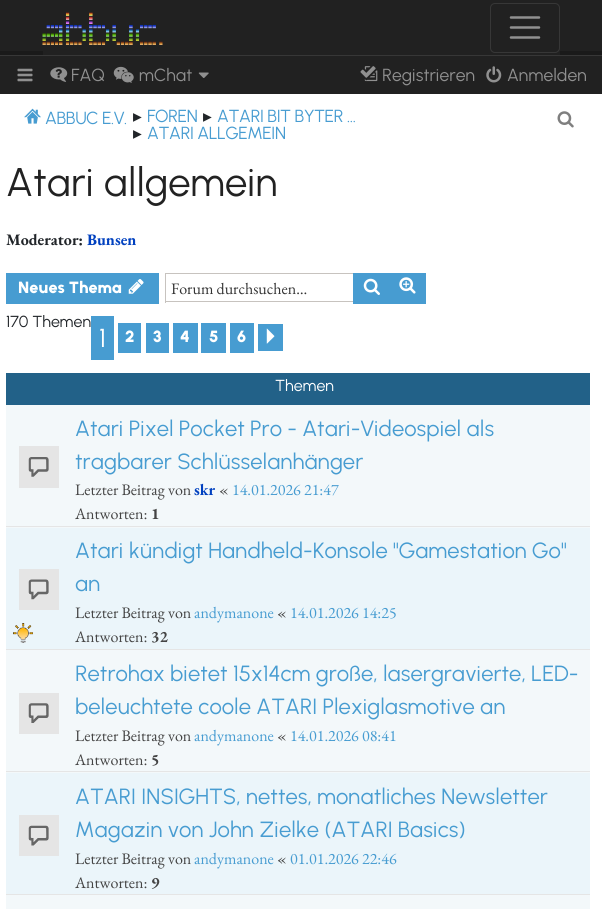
#include <cairo.h>
#include <math.h>
#include <stddef.h>

static cairo_t *ctx;

static void use_color(int r, int g, int b) {
    cairo_set_source_rgb(ctx, r / 255.0, g / 255.0, b / 255.0);
}

static void spaced_text(double x, double y, const char *s, double letter, double word) {
    cairo_move_to(ctx, x, y);
    while (*s) {
        char ch[5] = {0};
        int n = 0;
        do ch[n++] = *s++; while ((*s & 0xC0) == 0x80);
        cairo_show_text(ctx, ch);
        cairo_rel_move_to(ctx, letter + word * (*ch == ' '), 0);
    }
}

static void round_rect(double x, double y, double w, double h, double r) {
    cairo_new_sub_path(ctx);
    cairo_arc(ctx, x + w - r, y + h - r, r, 0, M_PI / 2);
    cairo_arc(ctx, x + r, y + h - r, r, M_PI / 2, M_PI);
    cairo_arc(ctx, x + r, y + r, r, M_PI, 1.5 * M_PI);
    cairo_arc(ctx, x + w - r, y + r, r, 1.5 * M_PI, 2 * M_PI);
    cairo_close_path(ctx);
}

static void picture(const char *path, double x, double y, double w, double h) {
    cairo_surface_t *image = cairo_image_surface_create_from_png(path);
    cairo_save(ctx);
    cairo_set_source_surface(ctx, image, x, y);
    cairo_rectangle(ctx, x, y, w, h);
    cairo_fill(ctx);
    cairo_restore(ctx);
    cairo_surface_destroy(image);
}

int main(void) {
    cairo_surface_t *surface = cairo_image_surface_create(CAIRO_FORMAT_RGB24, 602, 909);
    ctx = cairo_create(surface);
    cairo_font_options_t *options = cairo_font_options_create();
    cairo_font_options_set_hint_metrics(options, CAIRO_HINT_METRICS_OFF);
    cairo_font_options_set_hint_style(options, CAIRO_HINT_STYLE_NONE);
    cairo_set_font_options(ctx, options);
    cairo_set_miter_limit(ctx, 4);
    use_color(255, 255, 255);
    cairo_paint(ctx);
    use_color(33, 33, 33);
    cairo_rectangle(ctx, 0, 0, 602, 51);
    cairo_fill(ctx);
    use_color(26, 26, 26);
    cairo_rectangle(ctx, 0, 51, 602, 4);
    cairo_fill(ctx);
    use_color(33, 33, 33);
    cairo_rectangle(ctx, 43, 51, 517, 4);
    cairo_fill(ctx);
    picture("img1.png", 42, 12, 121, 33);
    round_rect(490.5, 3.5, 69, 49, 4.5);
    use_color(55, 55, 55);
    cairo_set_line_width(ctx, 1);
    cairo_stroke(ctx);
    cairo_new_path(ctx);
    cairo_move_to(ctx, 511, 17.5);
    cairo_line_to(ctx, 539, 17.5);
    cairo_move_to(ctx, 511, 27.5);
    cairo_line_to(ctx, 539, 27.5);
    cairo_move_to(ctx, 511, 37.5);
    cairo_line_to(ctx, 539, 37.5);
    use_color(144, 144, 144);
    cairo_set_line_width(ctx, 2.5);
    cairo_set_line_cap(ctx, CAIRO_LINE_CAP_ROUND);
    cairo_stroke(ctx);
    use_color(33, 33, 33);
    cairo_rectangle(ctx, 0, 56, 602, 38);
    cairo_fill(ctx);
    use_color(55, 55, 55);
    cairo_rectangle(ctx, 0, 55, 602, 1);
    cairo_fill(ctx);
    picture("img2.png", 17, 68, 16, 14);
    picture("img3.png", 50, 67, 18, 15);
    cairo_select_font_face(ctx, "Urbanist", CAIRO_FONT_SLANT_NORMAL, CAIRO_FONT_WEIGHT_NORMAL);
    cairo_set_font_size(ctx, 17.5);
    use_color(144, 144, 144);
    cairo_move_to(ctx, 71, 81);
    cairo_show_text(ctx, "FAQ");
    picture("img4.png", 113, 66, 21, 17);
    cairo_move_to(ctx, 139, 81);
    cairo_show_text(ctx, "mChat");
    picture("img5.png", 198, 72, 11, 6);
    picture("img6.png", 360, 66, 18, 16);
    cairo_move_to(ctx, 382, 81);
    cairo_show_text(ctx, "Registrieren");
    picture("img7.png", 486, 66, 16, 17);
    cairo_move_to(ctx, 507, 81);
    cairo_show_text(ctx, "Anmelden");
    picture("img8.png", 24, 108, 17, 16);
    use_color(71, 156, 209);
    spaced_text(45, 124, "ABBUC E.V.", -0.4, 0);
    cairo_select_font_face(ctx, "DejaVu Sans", CAIRO_FONT_SLANT_NORMAL, CAIRO_FONT_WEIGHT_NORMAL);
    use_color(33, 37, 41);
    cairo_move_to(ctx, 133, 122);
    cairo_show_text(ctx, "▸");
    cairo_select_font_face(ctx, "Urbanist", CAIRO_FONT_SLANT_NORMAL, CAIRO_FONT_WEIGHT_NORMAL);
    use_color(71, 156, 209);
    spaced_text(147, 122, "FOREN", -0.4, 0);
    cairo_select_font_face(ctx, "DejaVu Sans", CAIRO_FONT_SLANT_NORMAL, CAIRO_FONT_WEIGHT_NORMAL);
    use_color(33, 37, 41);
    cairo_move_to(ctx, 203, 122);
    cairo_show_text(ctx, "▸");
    cairo_select_font_face(ctx, "Urbanist", CAIRO_FONT_SLANT_NORMAL, CAIRO_FONT_WEIGHT_NORMAL);
    use_color(71, 156, 209);
    spaced_text(217, 122, "ATARI BIT BYTER …", -0.4, 0);
    cairo_select_font_face(ctx, "DejaVu Sans", CAIRO_FONT_SLANT_NORMAL, CAIRO_FONT_WEIGHT_NORMAL);
    use_color(33, 37, 41);
    cairo_move_to(ctx, 133, 139);
    cairo_show_text(ctx, "▸");
    cairo_select_font_face(ctx, "Urbanist", CAIRO_FONT_SLANT_NORMAL, CAIRO_FONT_WEIGHT_NORMAL);
    use_color(71, 156, 209);
    spaced_text(147, 139, "ATARI ALLGEMEIN", -0.4, 0);
    picture("img9.png", 557, 111, 17, 17);
    cairo_set_font_size(ctx, 40);
    use_color(34, 34, 34);
    cairo_move_to(ctx, 6, 196);
    cairo_show_text(ctx, "Atari allgemein");
    cairo_select_font_face(ctx, "EB Garamond", CAIRO_FONT_SLANT_NORMAL, CAIRO_FONT_WEIGHT_BOLD);
    cairo_set_font_size(ctx, 16);
    use_color(33, 37, 41);
    cairo_move_to(ctx, 6, 245);
    cairo_show_text(ctx, "Moderator:");
    use_color(0, 64, 191);
    cairo_move_to(ctx, 87, 245);
    cairo_show_text(ctx, "Bunsen");
    use_color(71, 156, 209);
    cairo_rectangle(ctx, 6, 273, 153, 31);
    cairo_fill(ctx);
    cairo_select_font_face(ctx, "Urbanist Black", CAIRO_FONT_SLANT_NORMAL, CAIRO_FONT_WEIGHT_NORMAL);
    cairo_set_font_size(ctx, 16.25);
    use_color(255, 255, 255);
    cairo_move_to(ctx, 18, 293);
    cairo_show_text(ctx, "Neues Thema");
    picture("img10.png", 128, 279, 16, 15);
    use_color(199, 195, 191);
    cairo_rectangle(ctx, 165, 273, 188, 1);
    cairo_fill(ctx);
    cairo_rectangle(ctx, 165, 301, 188, 1);
    cairo_fill(ctx);
    cairo_rectangle(ctx, 165, 273, 1, 30);
    cairo_fill(ctx);
    cairo_select_font_face(ctx, "EB Garamond", CAIRO_FONT_SLANT_NORMAL, CAIRO_FONT_WEIGHT_NORMAL);
    cairo_set_font_size(ctx, 16);
    use_color(51, 51, 51);
    cairo_move_to(ctx, 171, 294);
    cairo_show_text(ctx, "Forum durchsuchen…");
    use_color(71, 156, 209);
    cairo_rectangle(ctx, 353, 273, 37, 31);
    cairo_fill(ctx);
    picture("img11.png", 363, 278, 17, 17);
    cairo_rectangle(ctx, 390, 274, 35, 29);
    cairo_fill(ctx);
    cairo_rectangle(ctx, 390, 273, 36, 1);
    cairo_fill(ctx);
    cairo_rectangle(ctx, 425, 273, 1, 31);
    cairo_fill(ctx);
    cairo_rectangle(ctx, 390, 303, 36, 1);
    cairo_fill(ctx);
    picture("img12.png", 399, 277, 17, 17);
    cairo_select_font_face(ctx, "Urbanist", CAIRO_FONT_SLANT_NORMAL, CAIRO_FONT_WEIGHT_NORMAL);
    use_color(33, 37, 41);
    cairo_move_to(ctx, 6, 327);
    cairo_show_text(ctx, "170 Themen");
    use_color(71, 156, 209);
    cairo_rectangle(ctx, 91, 316, 23, 44);
    cairo_fill(ctx);
    cairo_set_font_size(ctx, 26);
    use_color(255, 255, 255);
    cairo_move_to(ctx, 99, 347);
    cairo_show_text(ctx, "1");
    use_color(71, 156, 209);
    cairo_rectangle(ctx, 118, 323, 23, 30);
    cairo_fill(ctx);
    cairo_select_font_face(ctx, "Urbanist Black", CAIRO_FONT_SLANT_NORMAL, CAIRO_FONT_WEIGHT_NORMAL);
    cairo_set_font_size(ctx, 16.25);
    use_color(255, 255, 255);
    cairo_move_to(ctx, 125, 342);
    cairo_show_text(ctx, "2");
    use_color(71, 156, 209);
    cairo_rectangle(ctx, 146, 323, 23, 30);
    cairo_fill(ctx);
    use_color(255, 255, 255);
    cairo_move_to(ctx, 153, 342);
    cairo_show_text(ctx, "3");
    use_color(71, 156, 209);
    cairo_rectangle(ctx, 173, 323, 25, 30);
    cairo_fill(ctx);
    use_color(255, 255, 255);
    cairo_move_to(ctx, 180, 342);
    cairo_show_text(ctx, "4");
    use_color(71, 156, 209);
    cairo_rectangle(ctx, 201, 323, 25, 30);
    cairo_fill(ctx);
    use_color(255, 255, 255);
    cairo_move_to(ctx, 209, 342);
    cairo_show_text(ctx, "5");
    use_color(71, 156, 209);
    cairo_rectangle(ctx, 230, 323, 24, 30);
    cairo_fill(ctx);
    use_color(255, 255, 255);
    cairo_move_to(ctx, 237, 342);
    cairo_show_text(ctx, "6");
    use_color(71, 156, 209);
    cairo_rectangle(ctx, 258, 324, 25, 27);
    cairo_fill(ctx);
    picture("img13.png", 266, 328, 9, 16);
    use_color(34, 97, 136);
    cairo_rectangle(ctx, 6, 373, 584, 32);
    cairo_fill(ctx);
    cairo_select_font_face(ctx, "Urbanist", CAIRO_FONT_SLANT_NORMAL, CAIRO_FONT_WEIGHT_NORMAL);
    cairo_set_font_size(ctx, 16);
    use_color(255, 255, 255);
    cairo_move_to(ctx, 275, 391);
    cairo_show_text(ctx, "Themen");
    use_color(243, 248, 250);
    cairo_rectangle(ctx, 6, 405, 584, 123);
    cairo_fill(ctx);
    use_color(229, 229, 229);
    cairo_rectangle(ctx, 6, 526, 584, 1);
    cairo_fill(ctx);
    cairo_rectangle(ctx, 19, 446, 40, 42);
    cairo_fill(ctx);
    picture("img14.png", 28, 457, 21, 20);
    cairo_set_font_size(ctx, 22);
    use_color(71, 156, 209);
    cairo_move_to(ctx, 75, 436);
    cairo_show_text(ctx, "Atari Pixel Pocket Pro - Atari-Videospiel als");
    cairo_move_to(ctx, 75, 469);
    cairo_show_text(ctx, "tragbarer Schlüsselanhänger");
    cairo_select_font_face(ctx, "EB Garamond", CAIRO_FONT_SLANT_NORMAL, CAIRO_FONT_WEIGHT_NORMAL);
    cairo_set_font_size(ctx, 16);
    use_color(68, 68, 68);
    cairo_move_to(ctx, 75, 495);
    cairo_show_text(ctx, "Letzter Beitrag von");
    cairo_select_font_face(ctx, "EB Garamond", CAIRO_FONT_SLANT_NORMAL, CAIRO_FONT_WEIGHT_BOLD);
    use_color(0, 64, 191);
    cairo_move_to(ctx, 194, 495);
    cairo_show_text(ctx, "skr");
    cairo_select_font_face(ctx, "EB Garamond", CAIRO_FONT_SLANT_NORMAL, CAIRO_FONT_WEIGHT_NORMAL);
    use_color(68, 68, 68);
    cairo_move_to(ctx, 219, 495);
    cairo_show_text(ctx, "«");
    use_color(71, 156, 209);
    cairo_move_to(ctx, 232, 495);
    cairo_show_text(ctx, "14.01.2026 21:47");
    use_color(68, 68, 68);
    cairo_move_to(ctx, 75, 519);
    cairo_show_text(ctx, "Antworten:");
    cairo_select_font_face(ctx, "EB Garamond", CAIRO_FONT_SLANT_NORMAL, CAIRO_FONT_WEIGHT_BOLD);
    cairo_move_to(ctx, 151, 519);
    cairo_show_text(ctx, "1");
    use_color(235, 245, 250);
    cairo_rectangle(ctx, 6, 528, 584, 121);
    cairo_fill(ctx);
    use_color(229, 229, 229);
    cairo_rectangle(ctx, 6, 649, 584, 1);
    cairo_fill(ctx);
    cairo_rectangle(ctx, 19, 569, 40, 41);
    cairo_fill(ctx);
    picture("img15.png", 28, 579, 21, 21);
    picture("img16.png", 13, 623, 20, 20);
    cairo_select_font_face(ctx, "Urbanist", CAIRO_FONT_SLANT_NORMAL, CAIRO_FONT_WEIGHT_NORMAL);
    cairo_set_font_size(ctx, 22);
    use_color(71, 156, 209);
    cairo_move_to(ctx, 75, 558);
    cairo_show_text(ctx, "Atari kündigt Handheld-Konsole \"Gamestation Go\"");
    cairo_move_to(ctx, 75, 591);
    cairo_show_text(ctx, "an");
    cairo_select_font_face(ctx, "EB Garamond", CAIRO_FONT_SLANT_NORMAL, CAIRO_FONT_WEIGHT_NORMAL);
    cairo_set_font_size(ctx, 16);
    use_color(68, 68, 68);
    cairo_move_to(ctx, 75, 618);
    cairo_show_text(ctx, "Letzter Beitrag von");
    use_color(71, 156, 209);
    cairo_move_to(ctx, 194, 618);
    cairo_show_text(ctx, "andymanone");
    use_color(68, 68, 68);
    cairo_move_to(ctx, 277, 618);
    cairo_show_text(ctx, "«");
    use_color(71, 156, 209);
    cairo_move_to(ctx, 290, 618);
    cairo_show_text(ctx, "14.01.2026 14:25");
    use_color(68, 68, 68);
    cairo_move_to(ctx, 75, 642);
    cairo_show_text(ctx, "Antworten:");
    cairo_select_font_face(ctx, "EB Garamond", CAIRO_FONT_SLANT_NORMAL, CAIRO_FONT_WEIGHT_BOLD);
    cairo_move_to(ctx, 151, 642);
    cairo_show_text(ctx, "32");
    use_color(243, 248, 250);
    cairo_rectangle(ctx, 6, 650, 584, 123);
    cairo_fill(ctx);
    use_color(229, 229, 229);
    cairo_rectangle(ctx, 6, 771, 584, 1);
    cairo_fill(ctx);
    cairo_rectangle(ctx, 19, 693, 40, 41);
    cairo_fill(ctx);
    picture("img17.png", 28, 703, 21, 20);
    cairo_select_font_face(ctx, "Urbanist", CAIRO_FONT_SLANT_NORMAL, CAIRO_FONT_WEIGHT_NORMAL);
    cairo_set_font_size(ctx, 22);
    use_color(71, 156, 209);
    cairo_move_to(ctx, 75, 681);
    cairo_show_text(ctx, "Retrohax bietet 15x14cm große, lasergravierte, LED-");
    cairo_move_to(ctx, 75, 714);
    cairo_show_text(ctx, "beleuchtete coole ATARI Plexiglasmotive an");
    cairo_select_font_face(ctx, "EB Garamond", CAIRO_FONT_SLANT_NORMAL, CAIRO_FONT_WEIGHT_NORMAL);
    cairo_set_font_size(ctx, 16);
    use_color(68, 68, 68);
    cairo_move_to(ctx, 75, 741);
    cairo_show_text(ctx, "Letzter Beitrag von");
    use_color(71, 156, 209);
    cairo_move_to(ctx, 194, 741);
    cairo_show_text(ctx, "andymanone");
    use_color(68, 68, 68);
    cairo_move_to(ctx, 277, 741);
    cairo_show_text(ctx, "«");
    use_color(71, 156, 209);
    cairo_move_to(ctx, 290, 741);
    cairo_show_text(ctx, "14.01.2026 08:41");
    use_color(68, 68, 68);
    cairo_move_to(ctx, 75, 765);
    cairo_show_text(ctx, "Antworten:");
    cairo_select_font_face(ctx, "EB Garamond", CAIRO_FONT_SLANT_NORMAL, CAIRO_FONT_WEIGHT_BOLD);
    cairo_move_to(ctx, 151, 765);
    cairo_show_text(ctx, "5");
    use_color(235, 245, 250);
    cairo_rectangle(ctx, 6, 773, 584, 121);
    cairo_fill(ctx);
    use_color(229, 229, 229);
    cairo_rectangle(ctx, 6, 894, 584, 1);
    cairo_fill(ctx);
    cairo_rectangle(ctx, 19, 815, 40, 41);
    cairo_fill(ctx);
    picture("img18.png", 28, 825, 21, 21);
    cairo_select_font_face(ctx, "Urbanist", CAIRO_FONT_SLANT_NORMAL, CAIRO_FONT_WEIGHT_NORMAL);
    cairo_set_font_size(ctx, 22);
    use_color(71, 156, 209);
    cairo_move_to(ctx, 75, 804);
    cairo_show_text(ctx, "ATARI INSIGHTS, nettes, monatliches Newsletter");
    cairo_move_to(ctx, 75, 837);
    cairo_show_text(ctx, "Magazin von John Zielke (ATARI Basics)");
    cairo_select_font_face(ctx, "EB Garamond", CAIRO_FONT_SLANT_NORMAL, CAIRO_FONT_WEIGHT_NORMAL);
    cairo_set_font_size(ctx, 16);
    use_color(68, 68, 68);
    cairo_move_to(ctx, 75, 864);
    cairo_show_text(ctx, "Letzter Beitrag von");
    use_color(71, 156, 209);
    cairo_move_to(ctx, 194, 864);
    cairo_show_text(ctx, "andymanone");
    use_color(68, 68, 68);
    cairo_move_to(ctx, 277, 864);
    cairo_show_text(ctx, "«");
    use_color(71, 156, 209);
    cairo_move_to(ctx, 290, 864);
    cairo_show_text(ctx, "01.01.2026 22:46");
    use_color(68, 68, 68);
    cairo_move_to(ctx, 75, 888);
    cairo_show_text(ctx, "Antworten:");
    cairo_select_font_face(ctx, "EB Garamond", CAIRO_FONT_SLANT_NORMAL, CAIRO_FONT_WEIGHT_BOLD);
    cairo_move_to(ctx, 151, 888);
    cairo_show_text(ctx, "9");
    use_color(243, 248, 250);
    cairo_rectangle(ctx, 6, 895, 584, 14);
    cairo_fill(ctx);
    cairo_surface_write_to_png(surface, "result.png");
    cairo_font_options_destroy(options);
    cairo_destroy(ctx);
    cairo_surface_destroy(surface);
    return 0;
}
